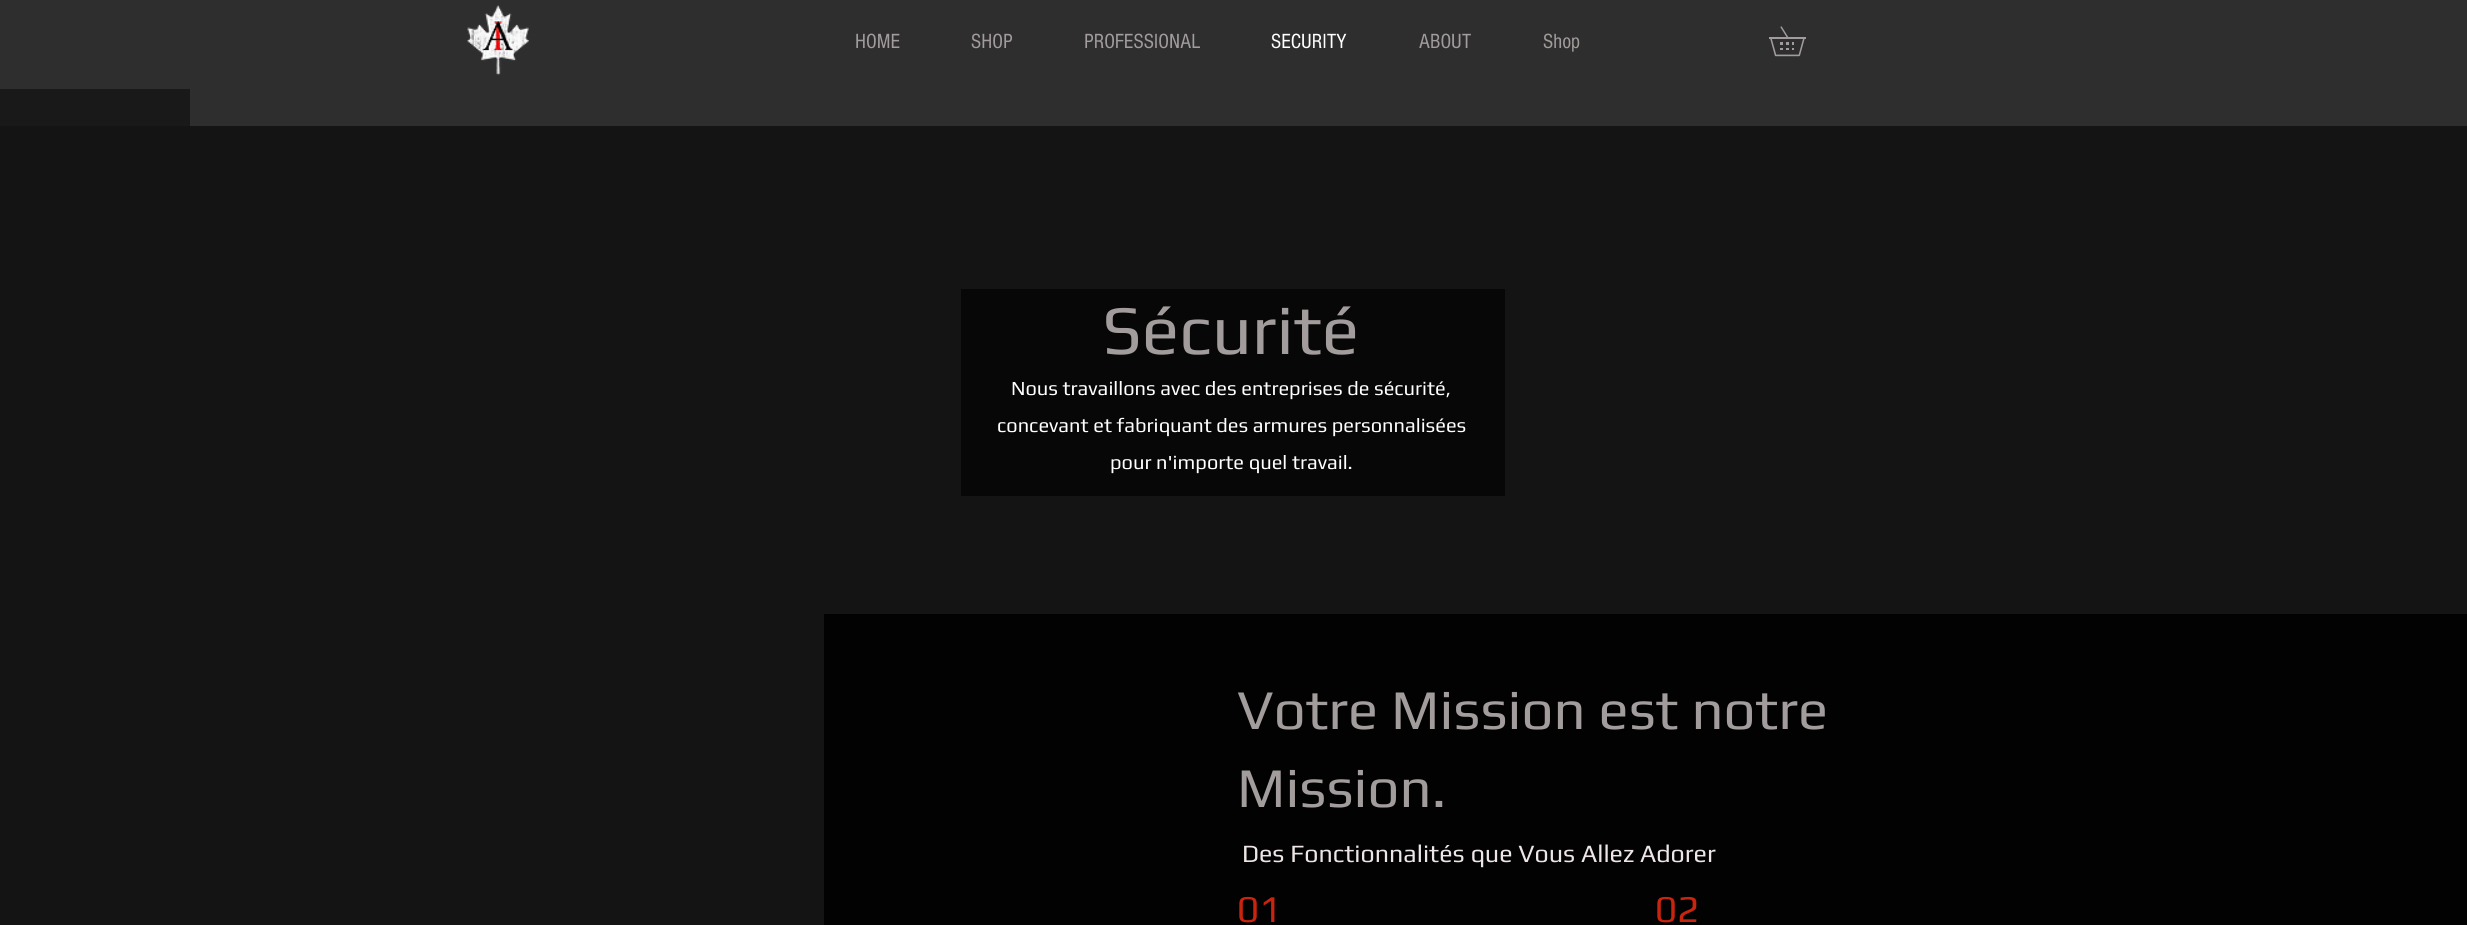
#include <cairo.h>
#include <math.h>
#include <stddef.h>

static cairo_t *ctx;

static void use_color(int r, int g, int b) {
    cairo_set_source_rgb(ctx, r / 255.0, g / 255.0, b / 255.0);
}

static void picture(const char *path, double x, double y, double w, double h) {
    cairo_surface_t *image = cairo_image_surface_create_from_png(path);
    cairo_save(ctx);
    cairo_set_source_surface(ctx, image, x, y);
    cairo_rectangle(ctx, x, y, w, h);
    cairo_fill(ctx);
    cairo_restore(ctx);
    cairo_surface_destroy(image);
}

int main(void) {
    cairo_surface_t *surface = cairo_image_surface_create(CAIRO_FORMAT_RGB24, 2467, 925);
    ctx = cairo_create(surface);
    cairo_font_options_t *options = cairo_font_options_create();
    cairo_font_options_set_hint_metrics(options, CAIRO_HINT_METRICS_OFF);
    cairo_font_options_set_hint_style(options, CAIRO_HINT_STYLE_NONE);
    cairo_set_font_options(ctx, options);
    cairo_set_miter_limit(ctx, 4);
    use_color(20, 20, 20);
    cairo_paint(ctx);
    use_color(47, 46, 46);
    cairo_rectangle(ctx, 0, 0, 2467, 126);
    cairo_fill(ctx);
    use_color(25, 25, 25);
    cairo_rectangle(ctx, 0, 89, 190, 37);
    cairo_fill(ctx);
    picture("img1.png", 467, 5, 62, 71);
    cairo_select_font_face(ctx, "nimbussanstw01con", CAIRO_FONT_SLANT_NORMAL, CAIRO_FONT_WEIGHT_NORMAL);
    cairo_set_font_size(ctx, 21.25);
    use_color(162, 156, 156);
    cairo_move_to(ctx, 855, 48);
    cairo_show_text(ctx, "HOME");
    cairo_move_to(ctx, 971, 48);
    cairo_show_text(ctx, "SHOP");
    cairo_move_to(ctx, 1084, 48);
    cairo_show_text(ctx, "PROFESSIONAL");
    use_color(255, 255, 255);
    cairo_move_to(ctx, 1271, 48);
    cairo_show_text(ctx, "SECURITY");
    use_color(162, 156, 156);
    cairo_move_to(ctx, 1419, 48);
    cairo_show_text(ctx, "ABOUT");
    cairo_move_to(ctx, 1543, 48);
    cairo_show_text(ctx, "Shop");
    picture("img2.png", 1769, 26, 37, 31);
    use_color(7, 7, 7);
    cairo_rectangle(ctx, 961, 289, 544, 207);
    cairo_fill(ctx);
    cairo_select_font_face(ctx, "Play", CAIRO_FONT_SLANT_NORMAL, CAIRO_FONT_WEIGHT_NORMAL);
    cairo_set_font_size(ctx, 70);
    use_color(162, 156, 156);
    cairo_move_to(ctx, 1102, 354);
    cairo_show_text(ctx, "Sécurité");
    cairo_set_font_size(ctx, 20);
    use_color(255, 255, 255);
    cairo_move_to(ctx, 1011, 395);
    cairo_show_text(ctx, "Nous travaillons avec des entreprises de sécurité,");
    cairo_move_to(ctx, 997, 432);
    cairo_show_text(ctx, "concevant et fabriquant des armures personnalisées");
    cairo_move_to(ctx, 1110, 469);
    cairo_show_text(ctx, "pour n'importe quel travail.");
    use_color(2, 2, 2);
    cairo_rectangle(ctx, 824, 614, 1643, 311);
    cairo_fill(ctx);
    cairo_set_font_size(ctx, 56.25);
    use_color(162, 156, 156);
    cairo_move_to(ctx, 1237, 729);
    cairo_show_text(ctx, "Votre Mission est notre");
    cairo_move_to(ctx, 1237, 807);
    cairo_show_text(ctx, "Mission.");
    cairo_set_font_size(ctx, 25);
    use_color(238, 230, 230);
    cairo_move_to(ctx, 1242, 862);
    cairo_show_text(ctx, "Des Fonctionnalités que Vous Allez Adorer");
    cairo_set_font_size(ctx, 38);
    use_color(201, 36, 14);
    cairo_move_to(ctx, 1237, 922);
    cairo_show_text(ctx, "01");
    cairo_move_to(ctx, 1655, 922);
    cairo_show_text(ctx, "02");
    cairo_surface_write_to_png(surface, "result.png");
    cairo_font_options_destroy(options);
    cairo_destroy(ctx);
    cairo_surface_destroy(surface);
    return 0;
}
